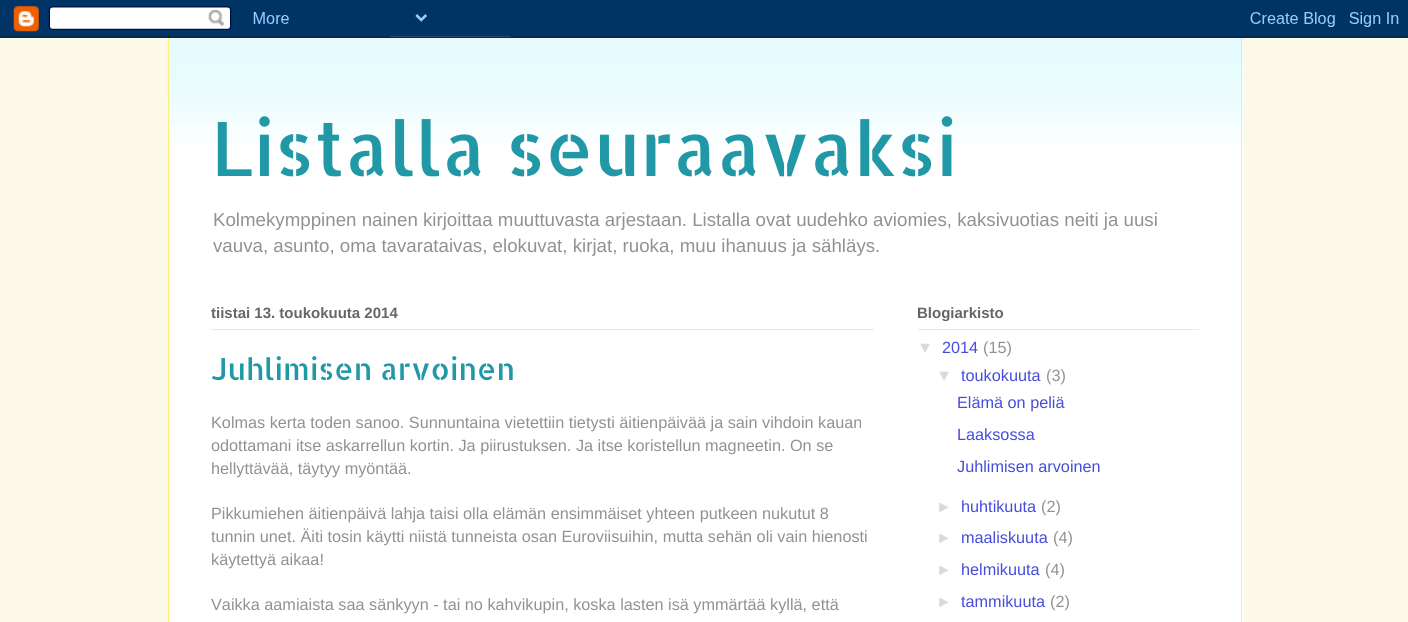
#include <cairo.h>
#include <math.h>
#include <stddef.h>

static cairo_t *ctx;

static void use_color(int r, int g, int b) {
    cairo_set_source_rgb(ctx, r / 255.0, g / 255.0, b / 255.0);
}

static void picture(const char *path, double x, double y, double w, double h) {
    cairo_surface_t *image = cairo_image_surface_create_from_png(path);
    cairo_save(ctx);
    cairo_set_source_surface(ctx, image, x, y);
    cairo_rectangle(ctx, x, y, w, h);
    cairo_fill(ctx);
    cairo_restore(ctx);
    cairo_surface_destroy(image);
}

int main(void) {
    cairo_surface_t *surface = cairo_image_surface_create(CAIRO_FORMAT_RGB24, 1408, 622);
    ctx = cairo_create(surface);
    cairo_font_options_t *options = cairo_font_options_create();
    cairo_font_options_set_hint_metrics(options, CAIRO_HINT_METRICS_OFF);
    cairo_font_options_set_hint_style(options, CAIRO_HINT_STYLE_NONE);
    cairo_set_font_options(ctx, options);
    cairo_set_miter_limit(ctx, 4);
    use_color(252, 249, 233);
    cairo_paint(ctx);
    picture("img1.png", 0, 0, 1408, 38);
    use_color(255, 255, 255);
    cairo_rectangle(ctx, 169, 38, 1074, 584);
    cairo_fill(ctx);
    picture("img2.png", 167, 38, 1076, 105);
    use_color(251, 240, 124);
    cairo_rectangle(ctx, 1241, 38, 1, 584);
    cairo_fill(ctx);
    cairo_rectangle(ctx, 168, 38, 1, 584);
    cairo_fill(ctx);
    cairo_select_font_face(ctx, "Allerta Stencil", CAIRO_FONT_SLANT_NORMAL, CAIRO_FONT_WEIGHT_NORMAL);
    cairo_set_font_size(ctx, 75);
    use_color(33, 152, 166);
    cairo_move_to(ctx, 211, 176);
    cairo_show_text(ctx, "Listalla seuraavaksi");
    cairo_select_font_face(ctx, "Liberation Sans", CAIRO_FONT_SLANT_NORMAL, CAIRO_FONT_WEIGHT_NORMAL);
    cairo_set_font_size(ctx, 18.7);
    use_color(145, 145, 145);
    cairo_move_to(ctx, 213, 226);
    cairo_show_text(ctx, "Kolmekymppinen nainen kirjoittaa muuttuvasta arjestaan. Listalla ovat uudehko aviomies, kaksivuotias neiti ja uusi");
    cairo_move_to(ctx, 213, 252);
    cairo_show_text(ctx, "vauva, asunto, oma tavarataivas, elokuvat, kirjat, ruoka, muu ihanuus ja sähläys.");
    use_color(232, 232, 232);
    cairo_rectangle(ctx, 211, 329, 663, 1);
    cairo_fill(ctx);
    cairo_select_font_face(ctx, "Liberation Sans", CAIRO_FONT_SLANT_NORMAL, CAIRO_FONT_WEIGHT_BOLD);
    cairo_set_font_size(ctx, 15);
    use_color(102, 102, 102);
    cairo_move_to(ctx, 211, 318);
    cairo_show_text(ctx, "tiistai 13. toukokuuta 2014");
    cairo_select_font_face(ctx, "Allerta Stencil", CAIRO_FONT_SLANT_NORMAL, CAIRO_FONT_WEIGHT_NORMAL);
    cairo_set_font_size(ctx, 30);
    use_color(33, 152, 166);
    cairo_move_to(ctx, 211, 380);
    cairo_show_text(ctx, "Juhlimisen arvoinen");
    cairo_select_font_face(ctx, "Liberation Sans", CAIRO_FONT_SLANT_NORMAL, CAIRO_FONT_WEIGHT_NORMAL);
    cairo_set_font_size(ctx, 16.25);
    use_color(145, 145, 145);
    cairo_move_to(ctx, 211, 428);
    cairo_show_text(ctx, "Kolmas kerta toden sanoo. Sunnuntaina vietettiin tietysti äitienpäivää ja sain vihdoin kauan");
    cairo_move_to(ctx, 211, 451);
    cairo_show_text(ctx, "odottamani itse askarrellun kortin. Ja piirustuksen. Ja itse koristellun magneetin. On se");
    cairo_move_to(ctx, 211, 474);
    cairo_show_text(ctx, "hellyttävää, täytyy myöntää.");
    cairo_move_to(ctx, 211, 519);
    cairo_show_text(ctx, "Pikkumiehen äitienpäivä lahja taisi olla elämän ensimmäiset yhteen putkeen nukutut 8");
    cairo_move_to(ctx, 211, 542);
    cairo_show_text(ctx, "tunnin unet. Äiti tosin käytti niistä tunneista osan Euroviisuihin, mutta sehän oli vain hienosti");
    cairo_move_to(ctx, 211, 565);
    cairo_show_text(ctx, "käytettyä aikaa!");
    cairo_move_to(ctx, 211, 610);
    cairo_show_text(ctx, "Vaikka aamiaista saa sänkyyn - tai no kahvikupin, koska lasten isä ymmärtää kyllä, että");
    use_color(232, 232, 232);
    cairo_rectangle(ctx, 918, 329, 281, 1);
    cairo_fill(ctx);
    cairo_select_font_face(ctx, "Liberation Sans", CAIRO_FONT_SLANT_NORMAL, CAIRO_FONT_WEIGHT_BOLD);
    cairo_set_font_size(ctx, 15);
    use_color(102, 102, 102);
    cairo_move_to(ctx, 917, 318);
    cairo_show_text(ctx, "Blogiarkisto");
    cairo_select_font_face(ctx, "Liberation Sans", CAIRO_FONT_SLANT_NORMAL, CAIRO_FONT_WEIGHT_NORMAL);
    cairo_set_font_size(ctx, 16.25);
    use_color(218, 218, 218);
    cairo_move_to(ctx, 917, 353);
    cairo_show_text(ctx, "▼");
    use_color(69, 77, 218);
    cairo_move_to(ctx, 942, 353);
    cairo_show_text(ctx, "2014");
    use_color(145, 145, 145);
    cairo_move_to(ctx, 983, 353);
    cairo_show_text(ctx, "(15)");
    use_color(218, 218, 218);
    cairo_move_to(ctx, 936, 381);
    cairo_show_text(ctx, "▼");
    use_color(69, 77, 218);
    cairo_move_to(ctx, 961, 381);
    cairo_show_text(ctx, "toukokuuta");
    use_color(145, 145, 145);
    cairo_move_to(ctx, 1046, 381);
    cairo_show_text(ctx, "(3)");
    use_color(69, 77, 218);
    cairo_move_to(ctx, 957, 408);
    cairo_show_text(ctx, "Elämä on peliä");
    cairo_move_to(ctx, 957, 440);
    cairo_show_text(ctx, "Laaksossa");
    cairo_move_to(ctx, 957, 472);
    cairo_show_text(ctx, "Juhlimisen arvoinen");
    use_color(218, 218, 218);
    cairo_move_to(ctx, 936, 512);
    cairo_show_text(ctx, "►");
    use_color(69, 77, 218);
    cairo_move_to(ctx, 961, 512);
    cairo_show_text(ctx, "huhtikuuta");
    use_color(145, 145, 145);
    cairo_move_to(ctx, 1041, 512);
    cairo_show_text(ctx, "(2)");
    use_color(218, 218, 218);
    cairo_move_to(ctx, 936, 543);
    cairo_show_text(ctx, "►");
    use_color(69, 77, 218);
    cairo_move_to(ctx, 961, 543);
    cairo_show_text(ctx, "maaliskuuta");
    use_color(145, 145, 145);
    cairo_move_to(ctx, 1053, 543);
    cairo_show_text(ctx, "(4)");
    use_color(218, 218, 218);
    cairo_move_to(ctx, 936, 575);
    cairo_show_text(ctx, "►");
    use_color(69, 77, 218);
    cairo_move_to(ctx, 961, 575);
    cairo_show_text(ctx, "helmikuuta");
    use_color(145, 145, 145);
    cairo_move_to(ctx, 1045, 575);
    cairo_show_text(ctx, "(4)");
    use_color(218, 218, 218);
    cairo_move_to(ctx, 936, 607);
    cairo_show_text(ctx, "►");
    use_color(69, 77, 218);
    cairo_move_to(ctx, 961, 607);
    cairo_show_text(ctx, "tammikuuta");
    use_color(145, 145, 145);
    cairo_move_to(ctx, 1050, 607);
    cairo_show_text(ctx, "(2)");
    cairo_surface_write_to_png(surface, "result.png");
    cairo_font_options_destroy(options);
    cairo_destroy(ctx);
    cairo_surface_destroy(surface);
    return 0;
}
